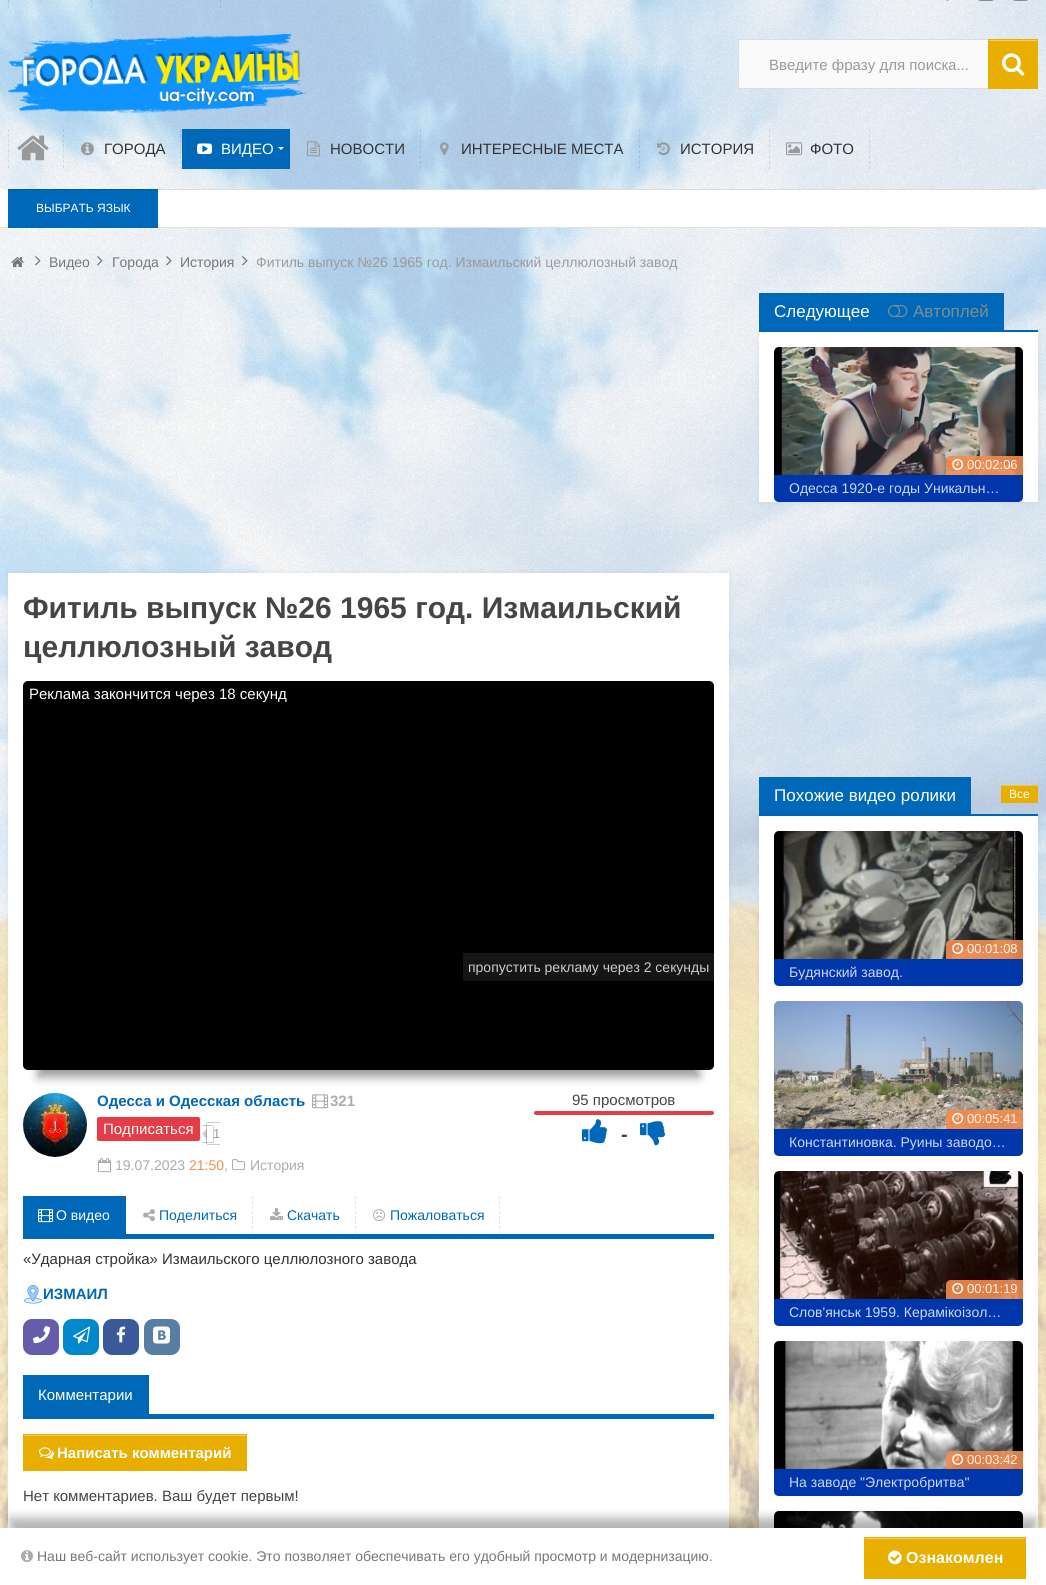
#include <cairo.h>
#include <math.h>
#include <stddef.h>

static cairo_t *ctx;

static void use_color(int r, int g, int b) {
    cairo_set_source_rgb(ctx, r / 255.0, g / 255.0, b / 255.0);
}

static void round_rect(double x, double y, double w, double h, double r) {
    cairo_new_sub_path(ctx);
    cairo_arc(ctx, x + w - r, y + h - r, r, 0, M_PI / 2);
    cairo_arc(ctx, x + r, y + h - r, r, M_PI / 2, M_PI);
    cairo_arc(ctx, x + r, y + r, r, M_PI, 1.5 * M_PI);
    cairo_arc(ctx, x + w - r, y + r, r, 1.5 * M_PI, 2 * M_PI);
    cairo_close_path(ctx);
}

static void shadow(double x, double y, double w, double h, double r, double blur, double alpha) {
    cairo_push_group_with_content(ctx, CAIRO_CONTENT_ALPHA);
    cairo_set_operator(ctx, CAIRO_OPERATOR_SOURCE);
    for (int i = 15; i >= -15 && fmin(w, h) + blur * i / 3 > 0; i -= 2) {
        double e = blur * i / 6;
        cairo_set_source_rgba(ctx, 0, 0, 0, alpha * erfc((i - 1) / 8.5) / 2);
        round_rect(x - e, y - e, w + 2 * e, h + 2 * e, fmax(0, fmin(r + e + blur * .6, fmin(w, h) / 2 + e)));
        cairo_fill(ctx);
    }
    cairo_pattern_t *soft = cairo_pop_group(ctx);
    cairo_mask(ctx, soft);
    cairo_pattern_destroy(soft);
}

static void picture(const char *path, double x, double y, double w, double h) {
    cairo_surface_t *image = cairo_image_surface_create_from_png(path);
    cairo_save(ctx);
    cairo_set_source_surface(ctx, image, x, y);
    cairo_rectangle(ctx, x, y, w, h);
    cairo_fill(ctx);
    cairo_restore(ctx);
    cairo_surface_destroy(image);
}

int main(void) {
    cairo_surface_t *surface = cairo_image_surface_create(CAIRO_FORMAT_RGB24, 1046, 1585);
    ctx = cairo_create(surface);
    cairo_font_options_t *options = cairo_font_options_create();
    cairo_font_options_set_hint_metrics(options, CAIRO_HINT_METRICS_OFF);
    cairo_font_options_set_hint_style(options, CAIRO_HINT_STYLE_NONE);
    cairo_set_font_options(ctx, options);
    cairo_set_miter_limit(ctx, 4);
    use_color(255, 255, 255);
    cairo_paint(ctx);
    picture("img1.png", 0, 0, 1046, 1528);
    use_color(255, 255, 255);
    cairo_rectangle(ctx, 0, 189, 1046, 39);
    cairo_fill(ctx);
    cairo_save(ctx);
    cairo_rectangle(ctx, 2, 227, 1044, 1);
    cairo_clip(ctx);
    use_color(0, 0, 0);
    shadow(2, 228, 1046, 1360, 0, 1, 0.2);
    cairo_restore(ctx);
    cairo_save(ctx);
    cairo_rectangle(ctx, 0, 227, 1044, 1);
    cairo_clip(ctx);
    use_color(0, 0, 0);
    shadow(-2, 228, 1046, 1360, 0, 1, 0.2);
    cairo_restore(ctx);
    use_color(0, 104, 184);
    cairo_rectangle(ctx, 8, 189, 150, 39);
    cairo_fill(ctx);
    cairo_save(ctx);
    cairo_rectangle(ctx, 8, 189, 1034, 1);
    cairo_clip(ctx);
    use_color(0, 0, 0);
    shadow(2, -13, 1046, 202, 10, 1, 0.2);
    cairo_restore(ctx);
    cairo_save(ctx);
    cairo_rectangle(ctx, 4, 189, 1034, 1);
    cairo_clip(ctx);
    use_color(0, 0, 0);
    shadow(-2, -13, 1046, 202, 10, 1, 0.2);
    cairo_restore(ctx);
    cairo_set_source_rgba(ctx, 1, 1, 1, 0.7);
    cairo_rectangle(ctx, 0, 0, 1046, 189);
    cairo_fill(ctx);
    picture("img2.png", 0, 0, 1046, 189);
    cairo_new_path(ctx);
    cairo_move_to(ctx, 91.5, -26);
    cairo_line_to(ctx, 91.5, 8);
    cairo_set_source_rgba(ctx, 0, 0, 0, 0.1);
    cairo_set_line_width(ctx, 1);
    cairo_set_dash(ctx, (double[]){3, 2.17}, 2, 0);
    cairo_stroke(ctx);
    cairo_new_path(ctx);
    cairo_move_to(ctx, 8.5, -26);
    cairo_line_to(ctx, 8.5, 8);
    cairo_stroke(ctx);
    cairo_new_path(ctx);
    cairo_move_to(ctx, 220.5, -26);
    cairo_line_to(ctx, 220.5, 8);
    cairo_stroke(ctx);
    picture("img3.png", 946, 0, 3, 1);
    picture("img4.png", 978, 0, 16, 1);
    picture("img5.png", 1013, 0, 15, 1);
    picture("img6.png", 8, 34, 300, 80);
    use_color(250, 250, 250);
    cairo_rectangle(ctx, 739, 40, 249, 48);
    cairo_fill(ctx);
    cairo_rectangle(ctx, 738.5, 39.5, 299, 49);
    use_color(221, 221, 221);
    cairo_set_dash(ctx, NULL, 0, 0);
    cairo_stroke(ctx);
    cairo_save(ctx);
    cairo_rectangle(ctx, 764, 56, 218, 17);
    cairo_clip(ctx);
    cairo_select_font_face(ctx, "Liberation Sans", CAIRO_FONT_SLANT_NORMAL, CAIRO_FONT_WEIGHT_NORMAL);
    cairo_set_font_size(ctx, 15);
    use_color(154, 154, 154);
    cairo_move_to(ctx, 769, 70);
    cairo_show_text(ctx, "Введите фразу для поиска...");
    cairo_restore(ctx);
    use_color(232, 174, 0);
    cairo_rectangle(ctx, 988, 39, 50, 50);
    cairo_fill(ctx);
    use_color(241, 206, 102);
    cairo_rectangle(ctx, 989, 40, 48, 1);
    cairo_fill(ctx);
    picture("img7.png", 1002, 53, 23, 23);
    cairo_new_path(ctx);
    cairo_move_to(ctx, 63.5, 129);
    cairo_line_to(ctx, 63.5, 168);
    cairo_move_to(ctx, 8.5, 129);
    cairo_line_to(ctx, 8.5, 168);
    cairo_set_source_rgba(ctx, 0, 0, 0, 0.1);
    cairo_set_dash(ctx, (double[]){3, 2.14}, 2, 0);
    cairo_stroke(ctx);
    picture("img8.png", 17, 135, 32, 26);
    cairo_new_path(ctx);
    cairo_move_to(ctx, 180.5, 129);
    cairo_line_to(ctx, 180.5, 169);
    cairo_set_dash(ctx, (double[]){3, 2.29}, 2, 0);
    cairo_stroke(ctx);
    picture("img9.png", 81, 142, 13, 14);
    cairo_select_font_face(ctx, "Liberation Sans", CAIRO_FONT_SLANT_NORMAL, CAIRO_FONT_WEIGHT_NORMAL);
    cairo_set_font_size(ctx, 15);
    use_color(51, 51, 51);
    cairo_move_to(ctx, 104, 154);
    cairo_show_text(ctx, "ГОРОДА");
    use_color(0, 104, 184);
    cairo_rectangle(ctx, 182, 129, 108, 40);
    cairo_fill(ctx);
    cairo_new_path(ctx);
    cairo_move_to(ctx, 289.5, 129);
    cairo_line_to(ctx, 289.5, 169);
    use_color(0, 94, 166);
    cairo_stroke(ctx);
    picture("img10.png", 197, 143, 16, 12);
    use_color(255, 255, 255);
    cairo_move_to(ctx, 221, 154);
    cairo_show_text(ctx, "ВИДЕО");
    cairo_new_path(ctx);
    cairo_move_to(ctx, 278, 147);
    cairo_line_to(ctx, 284, 147);
    cairo_line_to(ctx, 281, 150);
    cairo_close_path(ctx);
    cairo_fill(ctx);
    cairo_new_path(ctx);
    cairo_move_to(ctx, 420.5, 129);
    cairo_line_to(ctx, 420.5, 169);
    cairo_set_source_rgba(ctx, 0, 0, 0, 0.1);
    cairo_stroke(ctx);
    picture("img11.png", 307, 141, 13, 16);
    use_color(51, 51, 51);
    cairo_move_to(ctx, 330, 154);
    cairo_show_text(ctx, "НОВОСТИ");
    cairo_new_path(ctx);
    cairo_move_to(ctx, 639.5, 129);
    cairo_line_to(ctx, 639.5, 169);
    cairo_set_source_rgba(ctx, 0, 0, 0, 0.1);
    cairo_stroke(ctx);
    picture("img12.png", 440, 142, 9, 14);
    use_color(51, 51, 51);
    cairo_move_to(ctx, 461, 154);
    cairo_show_text(ctx, "ИНТЕРЕСНЫЕ МЕСТА");
    cairo_new_path(ctx);
    cairo_move_to(ctx, 769.5, 129);
    cairo_line_to(ctx, 769.5, 169);
    cairo_set_source_rgba(ctx, 0, 0, 0, 0.1);
    cairo_stroke(ctx);
    picture("img13.png", 657, 142, 13, 14);
    use_color(51, 51, 51);
    cairo_move_to(ctx, 680, 154);
    cairo_show_text(ctx, "ИСТОРИЯ");
    cairo_new_path(ctx);
    cairo_move_to(ctx, 869.5, 129);
    cairo_line_to(ctx, 869.5, 169);
    cairo_set_source_rgba(ctx, 0, 0, 0, 0.1);
    cairo_stroke(ctx);
    picture("img14.png", 786, 142, 17, 14);
    use_color(51, 51, 51);
    cairo_move_to(ctx, 810, 154);
    cairo_show_text(ctx, "ФОТО");
    cairo_set_font_size(ctx, 12);
    use_color(255, 255, 255);
    cairo_move_to(ctx, 36, 212);
    cairo_show_text(ctx, "ВЫБРАТЬ ЯЗЫК");
    cairo_set_source_rgba(ctx, 1, 1, 1, 0.7);
    cairo_rectangle(ctx, 0, 228, 1046, 1300);
    cairo_fill(ctx);
    picture("img15.png", 0, 228, 1046, 1300);
    picture("img16.png", 11, 257, 13, 11);
    picture("img17.png", 35, 256, 6, 10);
    cairo_set_font_size(ctx, 14);
    use_color(119, 119, 119);
    cairo_move_to(ctx, 49, 267);
    cairo_show_text(ctx, "Видео");
    picture("img18.png", 97, 256, 6, 10);
    cairo_move_to(ctx, 112, 267);
    cairo_show_text(ctx, "Города");
    picture("img19.png", 166, 256, 6, 10);
    cairo_move_to(ctx, 180, 267);
    cairo_show_text(ctx, "История");
    picture("img20.png", 242, 256, 6, 10);
    use_color(154, 154, 154);
    cairo_move_to(ctx, 256, 267);
    cairo_show_text(ctx, "Фитиль выпуск №26 1965 год. Измаильский целлюлозный завод");
    use_color(0, 0, 0);
    shadow(8, 573, 721, 963, 0, 2.5, 0.07);
    use_color(255, 255, 255);
    cairo_rectangle(ctx, 8, 573, 721, 955);
    cairo_fill(ctx);
    cairo_select_font_face(ctx, "Liberation Sans", CAIRO_FONT_SLANT_NORMAL, CAIRO_FONT_WEIGHT_BOLD);
    cairo_set_font_size(ctx, 30);
    use_color(69, 69, 69);
    cairo_move_to(ctx, 23, 618);
    cairo_show_text(ctx, "Фитиль выпуск №26 1965 год. Измаильский");
    cairo_move_to(ctx, 23, 657);
    cairo_show_text(ctx, "целлюлозный завод");
    use_color(0, 0, 0);
    shadow(38, 718, 661, 359, 0, 5, 0.4);
    use_color(0, 0, 0);
    round_rect(23, 681, 691, 389, 5);
    cairo_fill(ctx);
    cairo_select_font_face(ctx, "Liberation Sans", CAIRO_FONT_SLANT_NORMAL, CAIRO_FONT_WEIGHT_NORMAL);
    cairo_set_font_size(ctx, 15);
    use_color(255, 255, 255);
    cairo_move_to(ctx, 29, 699);
    cairo_show_text(ctx, "Реклама закончится через 18 секунд");
    use_color(21, 21, 21);
    cairo_rectangle(ctx, 463, 953, 251, 28);
    cairo_fill(ctx);
    cairo_set_font_size(ctx, 14);
    use_color(204, 204, 204);
    cairo_move_to(ctx, 468, 972);
    cairo_show_text(ctx, "пропустить рекламу через 2 секунды");
    picture("img21.png", 23, 1093, 64, 64);
    cairo_select_font_face(ctx, "Liberation Sans", CAIRO_FONT_SLANT_NORMAL, CAIRO_FONT_WEIGHT_BOLD);
    cairo_set_font_size(ctx, 15);
    use_color(0, 104, 184);
    cairo_move_to(ctx, 97, 1106);
    cairo_show_text(ctx, "Одесса и Одесская область");
    picture("img22.png", 312, 1094, 17, 15);
    use_color(172, 172, 172);
    cairo_move_to(ctx, 330, 1106);
    cairo_show_text(ctx, "321");
    use_color(229, 60, 69);
    round_rect(97, 1117, 103, 24, 2);
    cairo_fill(ctx);
    cairo_select_font_face(ctx, "Liberation Sans", CAIRO_FONT_SLANT_NORMAL, CAIRO_FONT_WEIGHT_NORMAL);
    use_color(255, 255, 255);
    cairo_move_to(ctx, 103, 1134);
    cairo_show_text(ctx, "Подписаться");
    use_color(204, 204, 204);
    cairo_rectangle(ctx, 207, 1122, 13, 1);
    cairo_fill(ctx);
    cairo_rectangle(ctx, 207, 1144, 13, 1);
    cairo_fill(ctx);
    cairo_rectangle(ctx, 206, 1123, 1, 21);
    cairo_fill(ctx);
    cairo_set_source_rgba(ctx, 0, 0, 0, 0.2);
    cairo_rectangle(ctx, 202, 1125, 11, 1);
    cairo_fill(ctx);
    use_color(204, 204, 204);
    cairo_rectangle(ctx, 213, 1126, 1, 16);
    cairo_fill(ctx);
    cairo_set_source_rgba(ctx, 0, 0, 0, 0.2);
    cairo_rectangle(ctx, 202, 1142, 11, 1);
    cairo_fill(ctx);
    cairo_new_path(ctx);
    cairo_move_to(ctx, 207, 1129);
    cairo_line_to(ctx, 207, 1139);
    cairo_line_to(ctx, 202, 1134);
    cairo_close_path(ctx);
    cairo_fill(ctx);
    cairo_set_font_size(ctx, 13);
    use_color(154, 154, 154);
    cairo_move_to(ctx, 213, 1138);
    cairo_show_text(ctx, "1");
    picture("img23.png", 98, 1158, 13, 15);
    cairo_set_font_size(ctx, 14);
    use_color(172, 172, 172);
    cairo_move_to(ctx, 115, 1170);
    cairo_show_text(ctx, "19.07.2023");
    use_color(242, 141, 79);
    cairo_move_to(ctx, 189, 1170);
    cairo_show_text(ctx, "21:50");
    use_color(172, 172, 172);
    cairo_move_to(ctx, 224, 1170);
    cairo_show_text(ctx, ",");
    picture("img24.png", 232, 1159, 13, 12);
    cairo_move_to(ctx, 250, 1170);
    cairo_show_text(ctx, "История");
    cairo_set_font_size(ctx, 15);
    use_color(69, 69, 69);
    cairo_move_to(ctx, 572, 1105);
    cairo_show_text(ctx, "95 просмотров");
    use_color(229, 60, 69);
    round_rect(534, 1111, 180, 4, 2);
    cairo_fill(ctx);
    picture("img25.png", 582, 1119, 25, 25);
    cairo_select_font_face(ctx, "Liberation Sans", CAIRO_FONT_SLANT_NORMAL, CAIRO_FONT_WEIGHT_BOLD);
    cairo_set_font_size(ctx, 20);
    use_color(69, 69, 69);
    cairo_move_to(ctx, 621, 1141);
    cairo_show_text(ctx, "-");
    picture("img26.png", 640, 1121, 25, 25);
    use_color(0, 104, 184);
    cairo_rectangle(ctx, 23, 1234, 691, 5);
    cairo_fill(ctx);
    cairo_rectangle(ctx, 23, 1196, 103, 38);
    cairo_fill(ctx);
    cairo_new_path(ctx);
    cairo_move_to(ctx, 125.5, 1196);
    cairo_line_to(ctx, 125.5, 1234);
    use_color(0, 94, 166);
    cairo_set_dash(ctx, (double[]){3, 2}, 2, 0);
    cairo_stroke(ctx);
    picture("img27.png", 38, 1209, 15, 14);
    cairo_select_font_face(ctx, "Liberation Sans", CAIRO_FONT_SLANT_NORMAL, CAIRO_FONT_WEIGHT_NORMAL);
    cairo_set_font_size(ctx, 14);
    use_color(255, 255, 255);
    cairo_move_to(ctx, 56, 1220);
    cairo_show_text(ctx, "О видео");
    cairo_new_path(ctx);
    cairo_move_to(ctx, 252.5, 1196);
    cairo_line_to(ctx, 252.5, 1234);
    use_color(230, 230, 230);
    cairo_stroke(ctx);
    picture("img28.png", 143, 1209, 12, 13);
    use_color(0, 104, 184);
    cairo_move_to(ctx, 159, 1220);
    cairo_show_text(ctx, "Поделиться");
    cairo_new_path(ctx);
    cairo_move_to(ctx, 355.5, 1196);
    cairo_line_to(ctx, 355.5, 1234);
    use_color(230, 230, 230);
    cairo_stroke(ctx);
    picture("img29.png", 270, 1208, 13, 13);
    use_color(0, 104, 184);
    cairo_move_to(ctx, 287, 1220);
    cairo_show_text(ctx, "Скачать");
    cairo_new_path(ctx);
    cairo_move_to(ctx, 499.5, 1196);
    cairo_line_to(ctx, 499.5, 1234);
    use_color(230, 230, 230);
    cairo_stroke(ctx);
    picture("img30.png", 373, 1209, 12, 12);
    use_color(0, 104, 184);
    cairo_move_to(ctx, 390, 1220);
    cairo_show_text(ctx, "Пожаловаться");
    cairo_set_font_size(ctx, 15);
    use_color(51, 51, 51);
    cairo_move_to(ctx, 23, 1264);
    cairo_show_text(ctx, "«Ударная стройка» Измаильского целлюлозного завода");
    picture("img31.png", 24, 1285, 18, 19);
    cairo_select_font_face(ctx, "Liberation Sans", CAIRO_FONT_SLANT_NORMAL, CAIRO_FONT_WEIGHT_BOLD);
    use_color(0, 104, 184);
    cairo_move_to(ctx, 43, 1299);
    cairo_show_text(ctx, "ИЗМАИЛ");
    use_color(102, 92, 172);
    round_rect(23, 1319, 36, 36, 9);
    cairo_fill(ctx);
    picture("img32.png", 33, 1326, 17, 18);
    use_color(0, 136, 204);
    round_rect(63, 1319, 36, 36, 9);
    cairo_fill(ctx);
    picture("img33.png", 73, 1326, 17, 18);
    use_color(59, 89, 152);
    round_rect(103, 1319, 36, 36, 9);
    cairo_fill(ctx);
    picture("img34.png", 116, 1326, 10, 17);
    use_color(88, 126, 163);
    round_rect(144, 1319, 36, 36, 9);
    cairo_fill(ctx);
    picture("img35.png", 153, 1326, 17, 18);
    use_color(0, 104, 184);
    cairo_rectangle(ctx, 23, 1414, 691, 5);
    cairo_fill(ctx);
    cairo_rectangle(ctx, 23, 1375, 126, 39);
    cairo_fill(ctx);
    cairo_new_path(ctx);
    cairo_move_to(ctx, 148.5, 1375);
    cairo_line_to(ctx, 148.5, 1414);
    use_color(0, 94, 166);
    cairo_set_dash(ctx, (double[]){3, 2.14}, 2, 0);
    cairo_stroke(ctx);
    cairo_select_font_face(ctx, "Liberation Sans", CAIRO_FONT_SLANT_NORMAL, CAIRO_FONT_WEIGHT_NORMAL);
    use_color(255, 255, 255);
    cairo_move_to(ctx, 38, 1400);
    cairo_show_text(ctx, "Комментарии");
    use_color(232, 174, 0);
    cairo_rectangle(ctx, 23, 1434, 224, 37);
    cairo_fill(ctx);
    use_color(241, 206, 102);
    cairo_rectangle(ctx, 24, 1435, 222, 1);
    cairo_fill(ctx);
    picture("img36.png", 39, 1447, 15, 13);
    cairo_select_font_face(ctx, "Liberation Sans", CAIRO_FONT_SLANT_NORMAL, CAIRO_FONT_WEIGHT_BOLD);
    use_color(255, 255, 255);
    cairo_move_to(ctx, 57, 1458);
    cairo_show_text(ctx, "Написать комментарий");
    cairo_select_font_face(ctx, "Liberation Sans", CAIRO_FONT_SLANT_NORMAL, CAIRO_FONT_WEIGHT_NORMAL);
    use_color(69, 69, 69);
    cairo_move_to(ctx, 23, 1501);
    cairo_show_text(ctx, "Нет комментариев. Ваш будет первым!");
    use_color(0, 104, 184);
    cairo_rectangle(ctx, 759, 330, 279, 2);
    cairo_fill(ctx);
    cairo_rectangle(ctx, 759, 293, 245, 37);
    cairo_fill(ctx);
    cairo_set_font_size(ctx, 17);
    use_color(255, 255, 255);
    cairo_move_to(ctx, 774, 317);
    cairo_show_text(ctx, "Следующее");
    picture("img37.png", 888, 305, 20, 13);
    use_color(127, 140, 141);
    cairo_move_to(ctx, 913, 317);
    cairo_show_text(ctx, "Автоплей");
    use_color(0, 0, 0);
    shadow(759, 332, 279, 170, 0, 2.5, 0.07);
    use_color(255, 255, 255);
    cairo_rectangle(ctx, 759, 332, 279, 170);
    cairo_fill(ctx);
    picture("img38.png", 774, 347, 249, 128);
    cairo_set_source_rgba(ctx, 0.949, 0.553, 0.31, 0.9);
    cairo_new_path(ctx);
    cairo_move_to(ctx, 951, 456);
    cairo_line_to(ctx, 1023, 456);
    cairo_line_to(ctx, 1023, 475);
    cairo_line_to(ctx, 946, 475);
    cairo_line_to(ctx, 946, 461);
    cairo_curve_to(ctx, 946, 458, 948, 456, 951, 456);
    cairo_close_path(ctx);
    cairo_fill(ctx);
    picture("img39.png", 952, 458, 12, 12);
    cairo_set_font_size(ctx, 13);
    use_color(252, 243, 238);
    cairo_move_to(ctx, 967, 469);
    cairo_show_text(ctx, "00:02:06");
    use_color(0, 54, 171);
    cairo_new_path(ctx);
    cairo_move_to(ctx, 774, 475);
    cairo_line_to(ctx, 1023, 475);
    cairo_line_to(ctx, 1023, 497);
    cairo_curve_to(ctx, 1023, 500, 1021, 502, 1018, 502);
    cairo_line_to(ctx, 779, 502);
    cairo_curve_to(ctx, 776, 502, 774, 500, 774, 497);
    cairo_close_path(ctx);
    cairo_fill(ctx);
    cairo_set_font_size(ctx, 14);
    use_color(204, 215, 238);
    cairo_move_to(ctx, 789, 493);
    cairo_show_text(ctx, "Одесса 1920-е годы Уникальн…");
    use_color(0, 104, 184);
    cairo_rectangle(ctx, 759, 814, 279, 2);
    cairo_fill(ctx);
    cairo_rectangle(ctx, 759, 777, 212, 37);
    cairo_fill(ctx);
    cairo_set_font_size(ctx, 17);
    use_color(255, 255, 255);
    cairo_move_to(ctx, 774, 801);
    cairo_show_text(ctx, "Похожие видео ролики");
    use_color(232, 174, 0);
    cairo_rectangle(ctx, 1001, 786, 37, 17);
    cairo_fill(ctx);
    cairo_set_font_size(ctx, 12);
    use_color(255, 255, 255);
    cairo_move_to(ctx, 1009, 798);
    cairo_show_text(ctx, "Все");
    use_color(239, 198, 77);
    cairo_rectangle(ctx, 1001, 785, 37, 1);
    cairo_fill(ctx);
    use_color(0, 0, 0);
    shadow(759, 816, 279, 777, 0, 2.5, 0.07);
    use_color(255, 255, 255);
    cairo_rectangle(ctx, 759, 816, 279, 712);
    cairo_fill(ctx);
    picture("img40.png", 774, 831, 249, 128);
    cairo_set_source_rgba(ctx, 0.949, 0.553, 0.31, 0.9);
    cairo_new_path(ctx);
    cairo_move_to(ctx, 951, 940);
    cairo_line_to(ctx, 1023, 940);
    cairo_line_to(ctx, 1023, 959);
    cairo_line_to(ctx, 946, 959);
    cairo_line_to(ctx, 946, 945);
    cairo_curve_to(ctx, 946, 942, 948, 940, 951, 940);
    cairo_close_path(ctx);
    cairo_fill(ctx);
    picture("img41.png", 952, 942, 12, 12);
    cairo_set_font_size(ctx, 13);
    use_color(252, 243, 238);
    cairo_move_to(ctx, 967, 953);
    cairo_show_text(ctx, "00:01:08");
    use_color(0, 54, 171);
    cairo_new_path(ctx);
    cairo_move_to(ctx, 774, 959);
    cairo_line_to(ctx, 1023, 959);
    cairo_line_to(ctx, 1023, 981);
    cairo_curve_to(ctx, 1023, 984, 1021, 986, 1018, 986);
    cairo_line_to(ctx, 779, 986);
    cairo_curve_to(ctx, 776, 986, 774, 984, 774, 981);
    cairo_close_path(ctx);
    cairo_fill(ctx);
    cairo_set_font_size(ctx, 14);
    use_color(204, 215, 238);
    cairo_move_to(ctx, 789, 977);
    cairo_show_text(ctx, "Будянский завод.");
    picture("img42.png", 774, 1001, 249, 128);
    cairo_set_source_rgba(ctx, 0.949, 0.553, 0.31, 0.9);
    cairo_new_path(ctx);
    cairo_move_to(ctx, 951, 1110);
    cairo_line_to(ctx, 1023, 1110);
    cairo_line_to(ctx, 1023, 1129);
    cairo_line_to(ctx, 946, 1129);
    cairo_line_to(ctx, 946, 1115);
    cairo_curve_to(ctx, 946, 1112, 948, 1110, 951, 1110);
    cairo_close_path(ctx);
    cairo_fill(ctx);
    picture("img43.png", 952, 1112, 12, 12);
    cairo_set_font_size(ctx, 13);
    use_color(252, 243, 238);
    cairo_move_to(ctx, 967, 1123);
    cairo_show_text(ctx, "00:05:41");
    use_color(0, 54, 171);
    cairo_new_path(ctx);
    cairo_move_to(ctx, 774, 1129);
    cairo_line_to(ctx, 1023, 1129);
    cairo_line_to(ctx, 1023, 1151);
    cairo_curve_to(ctx, 1023, 1154, 1021, 1156, 1018, 1156);
    cairo_line_to(ctx, 779, 1156);
    cairo_curve_to(ctx, 776, 1156, 774, 1154, 774, 1151);
    cairo_close_path(ctx);
    cairo_fill(ctx);
    cairo_set_font_size(ctx, 14);
    use_color(204, 215, 238);
    cairo_move_to(ctx, 789, 1147);
    cairo_show_text(ctx, "Константиновка. Руины заводо…");
    picture("img44.png", 774, 1171, 249, 128);
    cairo_set_source_rgba(ctx, 0.949, 0.553, 0.31, 0.9);
    cairo_new_path(ctx);
    cairo_move_to(ctx, 951, 1280);
    cairo_line_to(ctx, 1023, 1280);
    cairo_line_to(ctx, 1023, 1299);
    cairo_line_to(ctx, 946, 1299);
    cairo_line_to(ctx, 946, 1285);
    cairo_curve_to(ctx, 946, 1282, 948, 1280, 951, 1280);
    cairo_close_path(ctx);
    cairo_fill(ctx);
    picture("img45.png", 952, 1282, 12, 12);
    cairo_set_font_size(ctx, 13);
    use_color(252, 243, 238);
    cairo_move_to(ctx, 967, 1293);
    cairo_show_text(ctx, "00:01:19");
    use_color(0, 54, 171);
    cairo_new_path(ctx);
    cairo_move_to(ctx, 774, 1299);
    cairo_line_to(ctx, 1023, 1299);
    cairo_line_to(ctx, 1023, 1321);
    cairo_curve_to(ctx, 1023, 1324, 1021, 1326, 1018, 1326);
    cairo_line_to(ctx, 779, 1326);
    cairo_curve_to(ctx, 776, 1326, 774, 1324, 774, 1321);
    cairo_close_path(ctx);
    cairo_fill(ctx);
    cairo_set_font_size(ctx, 14);
    use_color(204, 215, 238);
    cairo_move_to(ctx, 789, 1317);
    cairo_show_text(ctx, "Слов'янськ 1959. Керамікоізол…");
    picture("img46.png", 774, 1341, 249, 128);
    cairo_set_source_rgba(ctx, 0.949, 0.553, 0.31, 0.9);
    cairo_new_path(ctx);
    cairo_move_to(ctx, 951, 1451);
    cairo_line_to(ctx, 1023, 1451);
    cairo_line_to(ctx, 1023, 1469);
    cairo_line_to(ctx, 946, 1469);
    cairo_line_to(ctx, 946, 1456);
    cairo_curve_to(ctx, 946, 1453, 948, 1451, 951, 1451);
    cairo_close_path(ctx);
    cairo_fill(ctx);
    picture("img47.png", 952, 1453, 12, 12);
    cairo_set_font_size(ctx, 13);
    use_color(252, 243, 238);
    cairo_move_to(ctx, 967, 1464);
    cairo_show_text(ctx, "00:03:42");
    use_color(0, 54, 171);
    cairo_new_path(ctx);
    cairo_move_to(ctx, 774, 1469);
    cairo_line_to(ctx, 1023, 1469);
    cairo_line_to(ctx, 1023, 1491);
    cairo_curve_to(ctx, 1023, 1494, 1021, 1496, 1018, 1496);
    cairo_line_to(ctx, 779, 1496);
    cairo_curve_to(ctx, 776, 1496, 774, 1494, 774, 1491);
    cairo_close_path(ctx);
    cairo_fill(ctx);
    cairo_set_font_size(ctx, 14);
    use_color(204, 215, 238);
    cairo_move_to(ctx, 789, 1487);
    cairo_show_text(ctx, "На заводе \"Электробритва\"");
    picture("img48.png", 774, 1511, 249, 17);
    use_color(0, 0, 0);
    shadow(10, 1518, 1026, 37, 0, 5, 0.3);
    use_color(255, 255, 255);
    cairo_rectangle(ctx, 1, 1528, 1044, 57);
    cairo_fill(ctx);
    picture("img49.png", 21, 1550, 12, 12);
    use_color(119, 119, 119);
    cairo_move_to(ctx, 37, 1561);
    cairo_show_text(ctx, "Наш веб-сайт использует cookie. Это позволяет обеспечивать его удобный просмотр и модернизацию.");
    use_color(232, 174, 0);
    cairo_rectangle(ctx, 864, 1537, 162, 42);
    cairo_fill(ctx);
    use_color(241, 206, 102);
    cairo_rectangle(ctx, 865, 1538, 160, 1);
    cairo_fill(ctx);
    picture("img50.png", 888, 1550, 14, 15);
    cairo_select_font_face(ctx, "Liberation Sans", CAIRO_FONT_SLANT_NORMAL, CAIRO_FONT_WEIGHT_BOLD);
    cairo_set_font_size(ctx, 16);
    use_color(255, 255, 255);
    cairo_move_to(ctx, 906, 1563);
    cairo_show_text(ctx, "Ознакомлен");
    cairo_surface_write_to_png(surface, "result.png");
    cairo_font_options_destroy(options);
    cairo_destroy(ctx);
    cairo_surface_destroy(surface);
    return 0;
}
